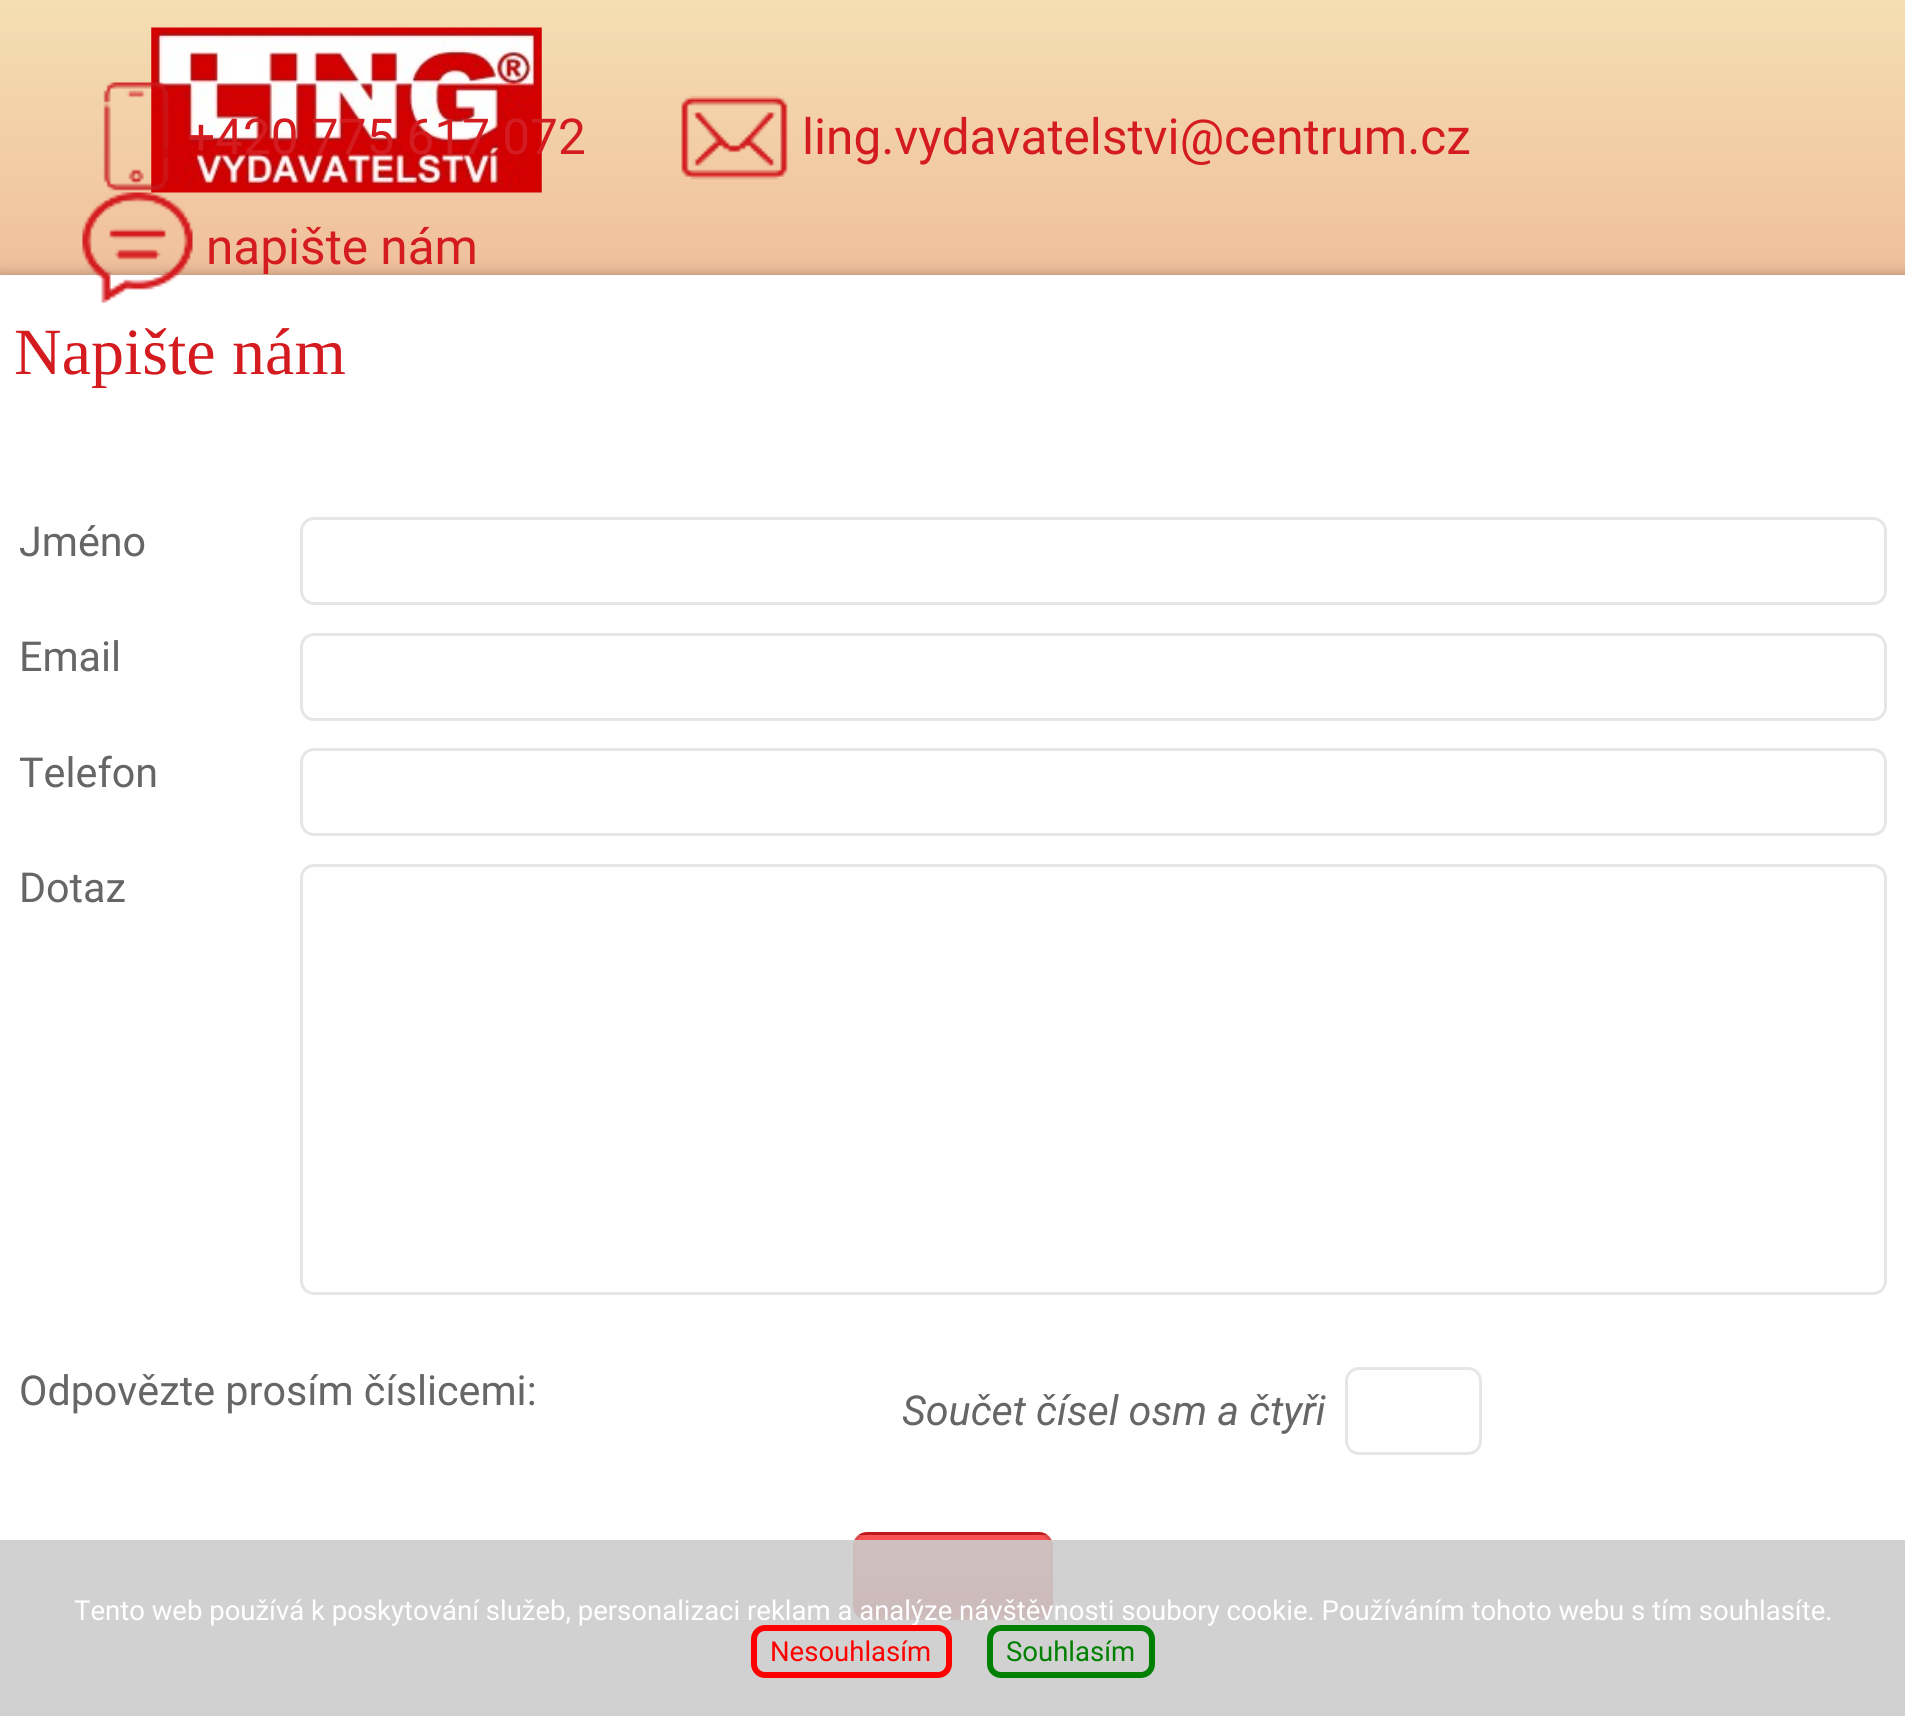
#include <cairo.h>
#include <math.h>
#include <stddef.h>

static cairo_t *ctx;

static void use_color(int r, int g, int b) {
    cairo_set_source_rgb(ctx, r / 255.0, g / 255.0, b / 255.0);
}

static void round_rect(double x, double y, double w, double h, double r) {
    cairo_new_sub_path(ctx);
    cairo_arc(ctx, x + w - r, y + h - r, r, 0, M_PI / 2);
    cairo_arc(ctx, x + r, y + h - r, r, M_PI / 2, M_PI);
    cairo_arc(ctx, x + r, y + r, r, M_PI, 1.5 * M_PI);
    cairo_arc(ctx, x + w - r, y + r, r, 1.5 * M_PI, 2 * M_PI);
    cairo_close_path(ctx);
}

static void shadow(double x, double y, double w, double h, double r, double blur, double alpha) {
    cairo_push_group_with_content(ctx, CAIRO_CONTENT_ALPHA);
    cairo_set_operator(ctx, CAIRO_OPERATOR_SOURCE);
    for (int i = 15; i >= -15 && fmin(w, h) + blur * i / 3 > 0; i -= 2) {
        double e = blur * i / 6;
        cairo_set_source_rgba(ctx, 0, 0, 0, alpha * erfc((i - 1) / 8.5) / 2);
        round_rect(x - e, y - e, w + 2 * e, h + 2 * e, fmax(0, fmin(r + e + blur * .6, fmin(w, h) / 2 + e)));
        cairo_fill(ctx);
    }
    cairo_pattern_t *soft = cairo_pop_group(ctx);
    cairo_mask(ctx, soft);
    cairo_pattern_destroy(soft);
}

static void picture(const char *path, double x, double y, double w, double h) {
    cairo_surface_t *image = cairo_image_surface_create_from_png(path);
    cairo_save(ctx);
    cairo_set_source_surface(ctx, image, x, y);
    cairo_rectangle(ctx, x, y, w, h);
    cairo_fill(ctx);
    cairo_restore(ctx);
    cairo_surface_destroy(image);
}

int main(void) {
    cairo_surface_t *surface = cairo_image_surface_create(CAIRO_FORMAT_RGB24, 1905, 1716);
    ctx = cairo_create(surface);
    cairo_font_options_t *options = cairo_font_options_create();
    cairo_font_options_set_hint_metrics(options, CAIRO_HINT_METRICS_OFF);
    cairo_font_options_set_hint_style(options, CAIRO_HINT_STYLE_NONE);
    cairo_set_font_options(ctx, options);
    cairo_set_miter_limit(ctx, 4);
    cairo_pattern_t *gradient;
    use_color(255, 255, 255);
    cairo_paint(ctx);
    gradient = cairo_pattern_create_linear(953, 0, 953, 1716);
    cairo_pattern_add_color_stop_rgba(gradient, 0, 0.961, 0.871, 0.702, 1);
    cairo_pattern_add_color_stop_rgba(gradient, 1, 0.831, 0.106, 0.122, 1);
    cairo_set_source(ctx, gradient);
    cairo_pattern_destroy(gradient);
    cairo_rectangle(ctx, 0, 0, 1905, 275);
    cairo_fill(ctx);
    picture("img1.png", 151, 27, 391, 166);
    picture("img2.png", 103, 82, 66, 109);
    cairo_select_font_face(ctx, "Roboto", CAIRO_FONT_SLANT_NORMAL, CAIRO_FONT_WEIGHT_NORMAL);
    cairo_set_font_size(ctx, 49.5);
    use_color(212, 27, 31);
    cairo_move_to(ctx, 187, 154);
    cairo_show_text(ctx, "+420 775 617 072");
    picture("img3.png", 681, 95, 107, 85);
    cairo_move_to(ctx, 802, 154);
    cairo_show_text(ctx, "ling.vydavatelstvi@centrum.cz");
    use_color(0, 0, 0);
    shadow(0, 275, 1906, 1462, 0, 7, 0.3);
    use_color(255, 255, 255);
    cairo_rectangle(ctx, 0, 275, 1905, 1441);
    cairo_fill(ctx);
    picture("img4.png", 82, 192, 111, 111);
    use_color(212, 27, 31);
    cairo_move_to(ctx, 206, 264);
    cairo_show_text(ctx, "napište nám");
    cairo_select_font_face(ctx, "Liberation Serif", CAIRO_FONT_SLANT_NORMAL, CAIRO_FONT_WEIGHT_NORMAL);
    cairo_set_font_size(ctx, 66);
    cairo_move_to(ctx, 14, 374);
    cairo_show_text(ctx, "Napište nám");
    cairo_select_font_face(ctx, "Roboto", CAIRO_FONT_SLANT_NORMAL, CAIRO_FONT_WEIGHT_NORMAL);
    cairo_set_font_size(ctx, 41.25);
    use_color(102, 102, 102);
    cairo_move_to(ctx, 19, 556);
    cairo_show_text(ctx, "Jméno");
    round_rect(301.5, 518.5, 1584, 85, 12.5);
    use_color(230, 230, 230);
    cairo_set_line_width(ctx, 3);
    cairo_stroke(ctx);
    use_color(102, 102, 102);
    cairo_move_to(ctx, 19, 671);
    cairo_show_text(ctx, "Email");
    round_rect(301.5, 634.5, 1584, 85, 12.5);
    use_color(230, 230, 230);
    cairo_stroke(ctx);
    use_color(102, 102, 102);
    cairo_move_to(ctx, 19, 787);
    cairo_show_text(ctx, "Telefon");
    round_rect(301.5, 749.5, 1584, 85, 12.5);
    use_color(230, 230, 230);
    cairo_stroke(ctx);
    use_color(102, 102, 102);
    cairo_move_to(ctx, 19, 902);
    cairo_show_text(ctx, "Dotaz");
    round_rect(301.5, 865.5, 1584, 428, 12.5);
    use_color(230, 230, 230);
    cairo_stroke(ctx);
    use_color(102, 102, 102);
    cairo_move_to(ctx, 19, 1405);
    cairo_show_text(ctx, "Odpovězte prosím číslicemi:");
    cairo_select_font_face(ctx, "Roboto", CAIRO_FONT_SLANT_ITALIC, CAIRO_FONT_WEIGHT_NORMAL);
    cairo_move_to(ctx, 902, 1425);
    cairo_show_text(ctx, "Součet čísel osm a čtyři");
    round_rect(1346.5, 1368.5, 134, 85, 12.5);
    use_color(230, 230, 230);
    cairo_stroke(ctx);
    cairo_save(ctx);
    round_rect(853, 1532, 200, 88, 14);
    cairo_clip(ctx);
    gradient = cairo_pattern_create_linear(953, 1452, 953, 1535);
    cairo_pattern_add_color_stop_rgba(gradient, 0, 0.976, 0.329, 0.333, 1);
    cairo_pattern_add_color_stop_rgba(gradient, 1, 0.831, 0.106, 0.122, 1);
    cairo_set_source(ctx, gradient);
    cairo_pattern_destroy(gradient);
    cairo_rectangle(ctx, 853, 1532, 200, 3);
    cairo_fill(ctx);
    gradient = cairo_pattern_create_linear(953, 1535, 953, 1617);
    cairo_pattern_add_color_stop_rgba(gradient, 0, 0.976, 0.329, 0.333, 1);
    cairo_pattern_add_color_stop_rgba(gradient, 1, 0.831, 0.106, 0.122, 1);
    cairo_set_source(ctx, gradient);
    cairo_pattern_destroy(gradient);
    cairo_rectangle(ctx, 853, 1535, 200, 82);
    cairo_fill(ctx);
    gradient = cairo_pattern_create_linear(953, 1617, 953, 1700);
    cairo_pattern_add_color_stop_rgba(gradient, 0, 0.976, 0.329, 0.333, 1);
    cairo_pattern_add_color_stop_rgba(gradient, 1, 0.831, 0.106, 0.122, 1);
    cairo_set_source(ctx, gradient);
    cairo_pattern_destroy(gradient);
    cairo_rectangle(ctx, 853, 1617, 200, 3);
    cairo_fill(ctx);
    cairo_restore(ctx);
    round_rect(854.5, 1533.5, 197, 85, 12.5);
    cairo_set_source_rgba(ctx, 0, 0, 0, 0.1);
    cairo_stroke(ctx);
    cairo_set_source_rgba(ctx, 0.8, 0.8, 0.8, 0.9);
    cairo_rectangle(ctx, 0, 1540, 1905, 176);
    cairo_fill(ctx);
    cairo_select_font_face(ctx, "Roboto", CAIRO_FONT_SLANT_NORMAL, CAIRO_FONT_WEIGHT_NORMAL);
    cairo_set_font_size(ctx, 27.5);
    use_color(255, 255, 255);
    cairo_move_to(ctx, 74, 1620);
    cairo_show_text(ctx, "Tento web používá k poskytování služeb, personalizaci reklam a analýze návštěvnosti soubory cookie. Používáním tohoto webu s tím souhlasíte.");
    round_rect(754, 1628, 195, 47, 11);
    use_color(255, 0, 0);
    cairo_set_line_width(ctx, 6);
    cairo_stroke(ctx);
    cairo_move_to(ctx, 770, 1661);
    cairo_show_text(ctx, "Nesouhlasím");
    round_rect(990, 1628, 162, 47, 11);
    use_color(0, 128, 0);
    cairo_stroke(ctx);
    cairo_move_to(ctx, 1006, 1661);
    cairo_show_text(ctx, "Souhlasím");
    cairo_surface_write_to_png(surface, "result.png");
    cairo_font_options_destroy(options);
    cairo_destroy(ctx);
    cairo_surface_destroy(surface);
    return 0;
}
